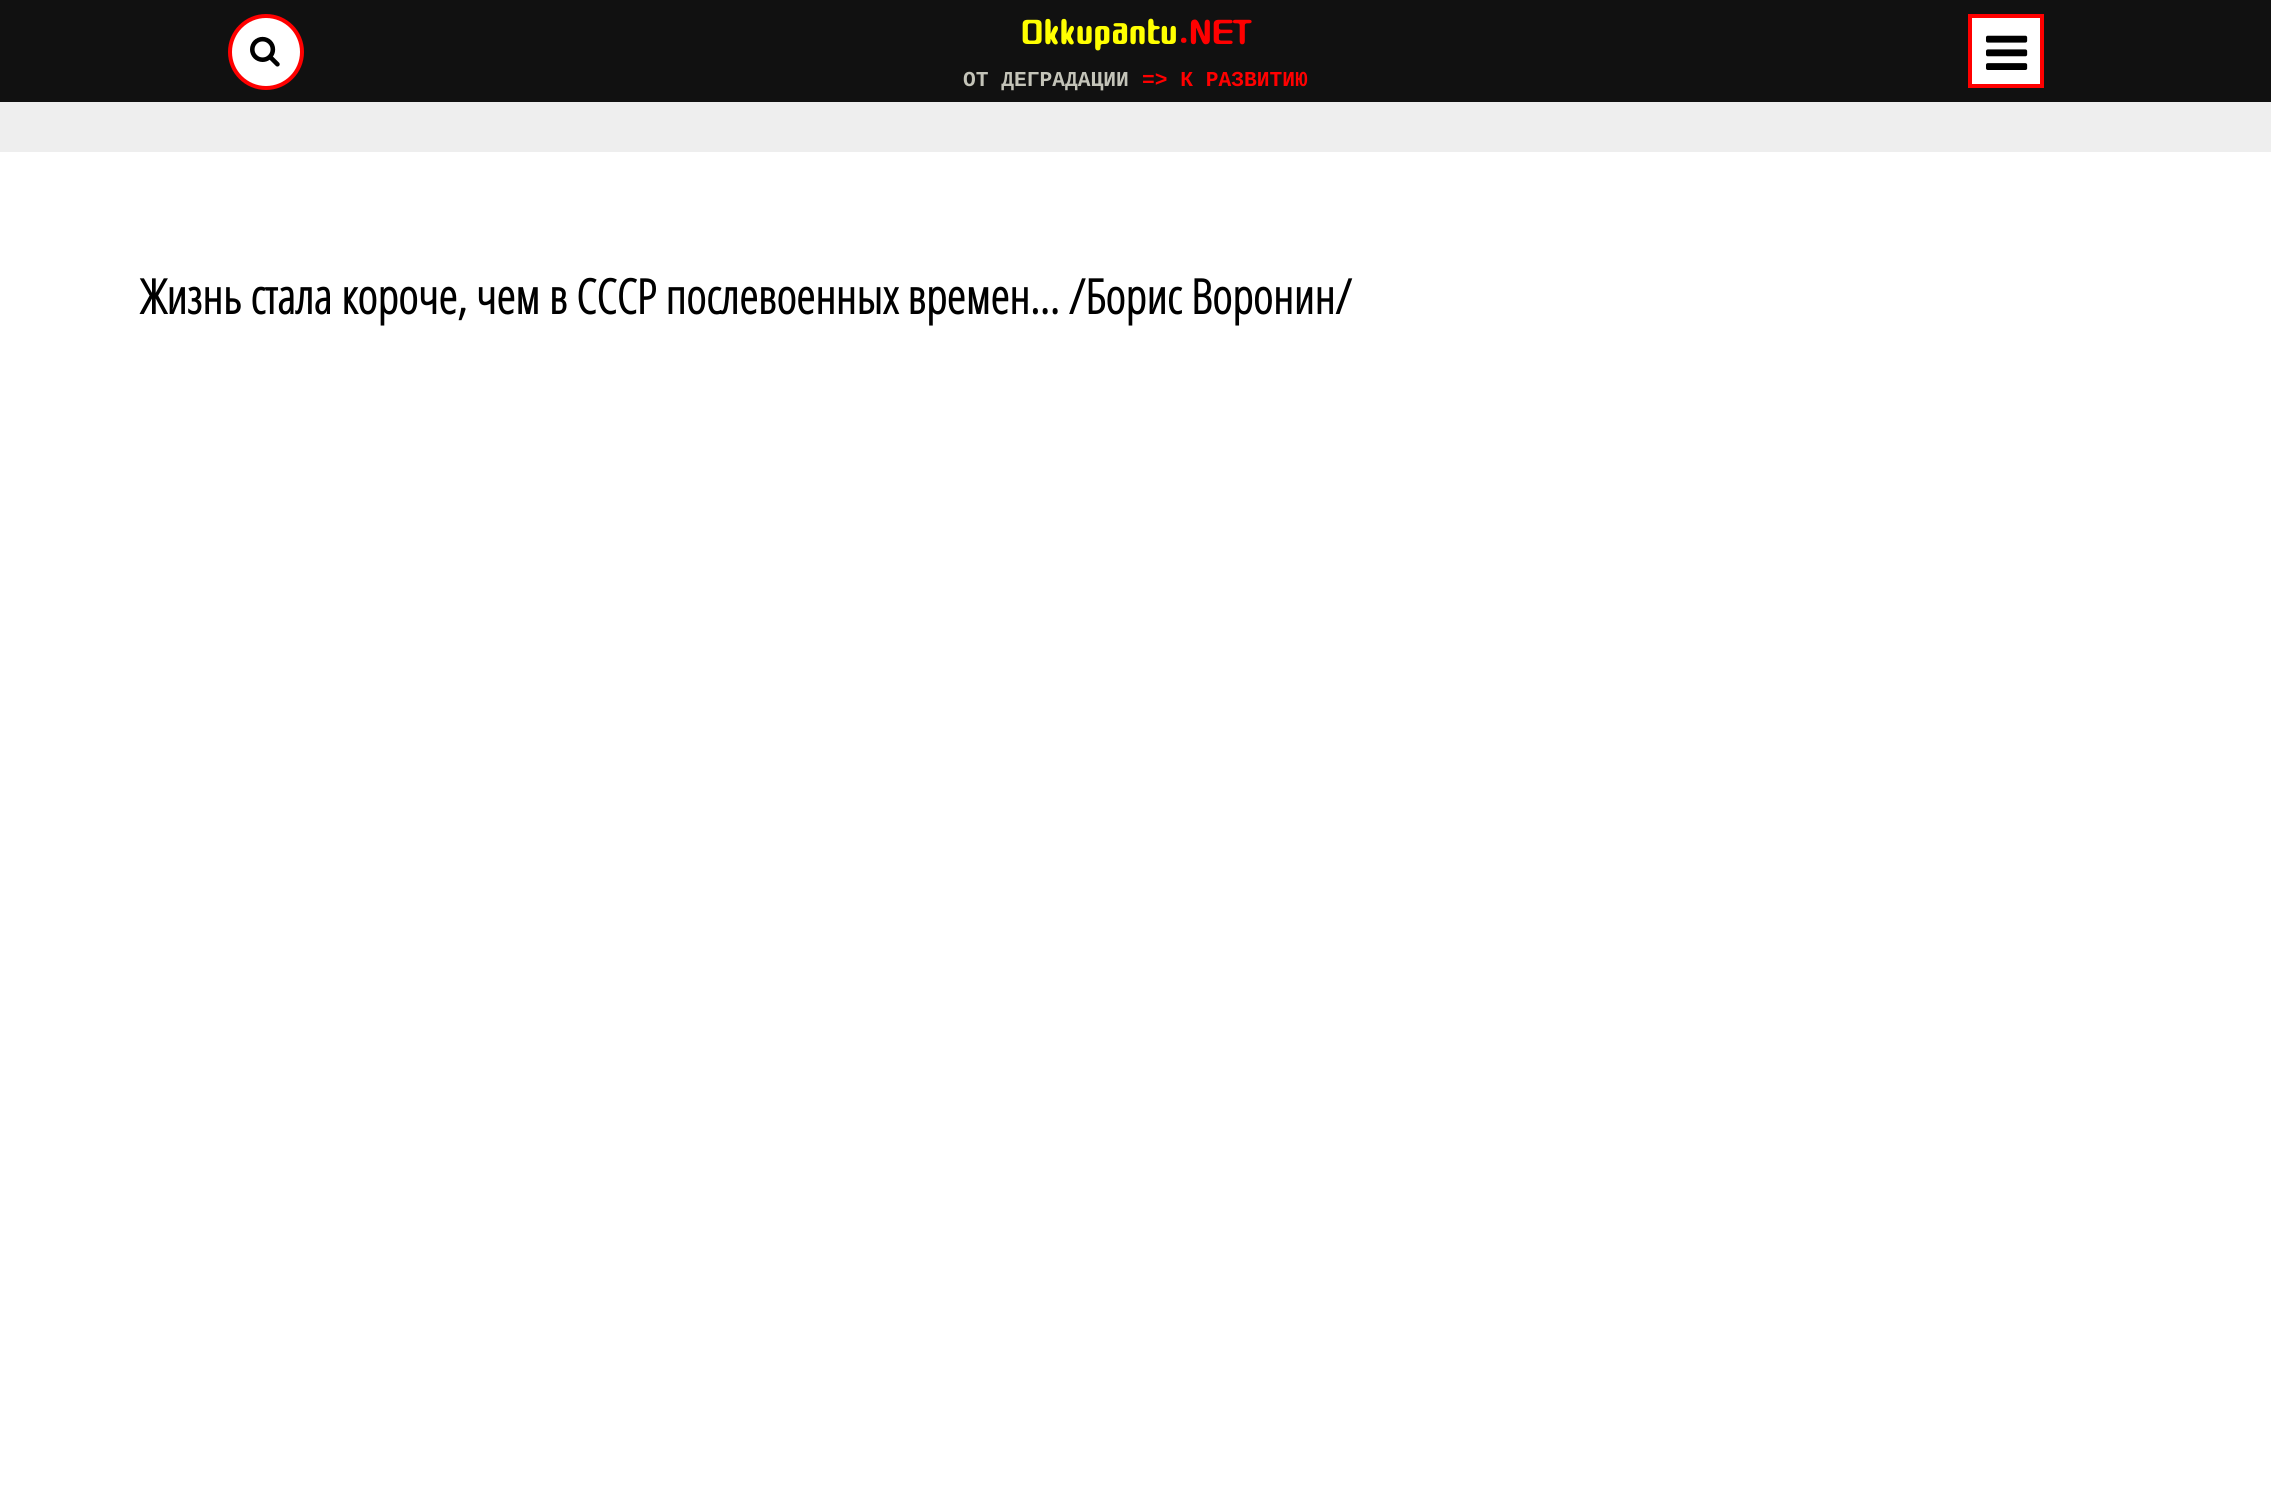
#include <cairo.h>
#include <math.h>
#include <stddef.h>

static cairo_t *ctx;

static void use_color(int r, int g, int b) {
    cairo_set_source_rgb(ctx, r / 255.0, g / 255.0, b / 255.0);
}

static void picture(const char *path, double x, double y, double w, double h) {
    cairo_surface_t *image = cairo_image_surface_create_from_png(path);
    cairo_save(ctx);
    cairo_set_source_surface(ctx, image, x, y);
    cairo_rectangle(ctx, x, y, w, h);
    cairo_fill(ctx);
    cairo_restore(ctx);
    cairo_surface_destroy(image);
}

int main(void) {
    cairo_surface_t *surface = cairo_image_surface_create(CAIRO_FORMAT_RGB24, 2271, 1507);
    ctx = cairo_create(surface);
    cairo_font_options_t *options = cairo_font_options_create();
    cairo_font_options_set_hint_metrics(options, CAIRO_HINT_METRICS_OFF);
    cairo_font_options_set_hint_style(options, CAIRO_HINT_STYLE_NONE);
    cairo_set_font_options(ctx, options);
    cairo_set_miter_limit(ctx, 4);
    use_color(238, 238, 238);
    cairo_paint(ctx);
    use_color(17, 17, 17);
    cairo_rectangle(ctx, 0, 0, 2271, 102);
    cairo_fill(ctx);
    use_color(255, 255, 255);
    cairo_arc(ctx, 266, 52, 36, 0, 2 * M_PI);
    cairo_fill_preserve(ctx);
    use_color(255, 0, 0);
    cairo_set_line_width(ctx, 4);
    cairo_stroke(ctx);
    picture("img1.png", 250, 36, 30, 31);
    cairo_select_font_face(ctx, "Cute Font", CAIRO_FONT_SLANT_NORMAL, CAIRO_FONT_WEIGHT_BOLD);
    cairo_set_font_size(ctx, 53);
    use_color(255, 255, 0);
    cairo_move_to(ctx, 1020, 44);
    cairo_show_text(ctx, "Okkupantu");
    use_color(255, 0, 0);
    cairo_move_to(ctx, 1178, 44);
    cairo_show_text(ctx, ".NET");
    cairo_select_font_face(ctx, "Liberation Mono", CAIRO_FONT_SLANT_NORMAL, CAIRO_FONT_WEIGHT_BOLD);
    cairo_set_font_size(ctx, 21.25);
    use_color(196, 196, 185);
    cairo_move_to(ctx, 963, 86);
    cairo_show_text(ctx, "ОТ ДЕГРАДАЦИИ");
    use_color(255, 0, 0);
    cairo_move_to(ctx, 1142, 86);
    cairo_show_text(ctx, "=> К РАЗВИТИЮ");
    use_color(255, 255, 255);
    cairo_rectangle(ctx, 1970, 16, 72, 70);
    cairo_fill_preserve(ctx);
    use_color(255, 0, 0);
    cairo_stroke(ctx);
    picture("img2.png", 1986, 35, 42, 35);
    use_color(255, 255, 255);
    cairo_rectangle(ctx, 0, 152, 2271, 1355);
    cairo_fill(ctx);
    cairo_select_font_face(ctx, "Open Sans Condensed", CAIRO_FONT_SLANT_NORMAL, CAIRO_FONT_WEIGHT_BOLD);
    cairo_set_font_size(ctx, 48);
    use_color(0, 0, 0);
    cairo_move_to(ctx, 140, 314);
    cairo_show_text(ctx, "Жизнь стала короче, чем в СССР послевоенных времен... /Борис Воронин/");
    cairo_surface_write_to_png(surface, "result.png");
    cairo_font_options_destroy(options);
    cairo_destroy(ctx);
    cairo_surface_destroy(surface);
    return 0;
}
